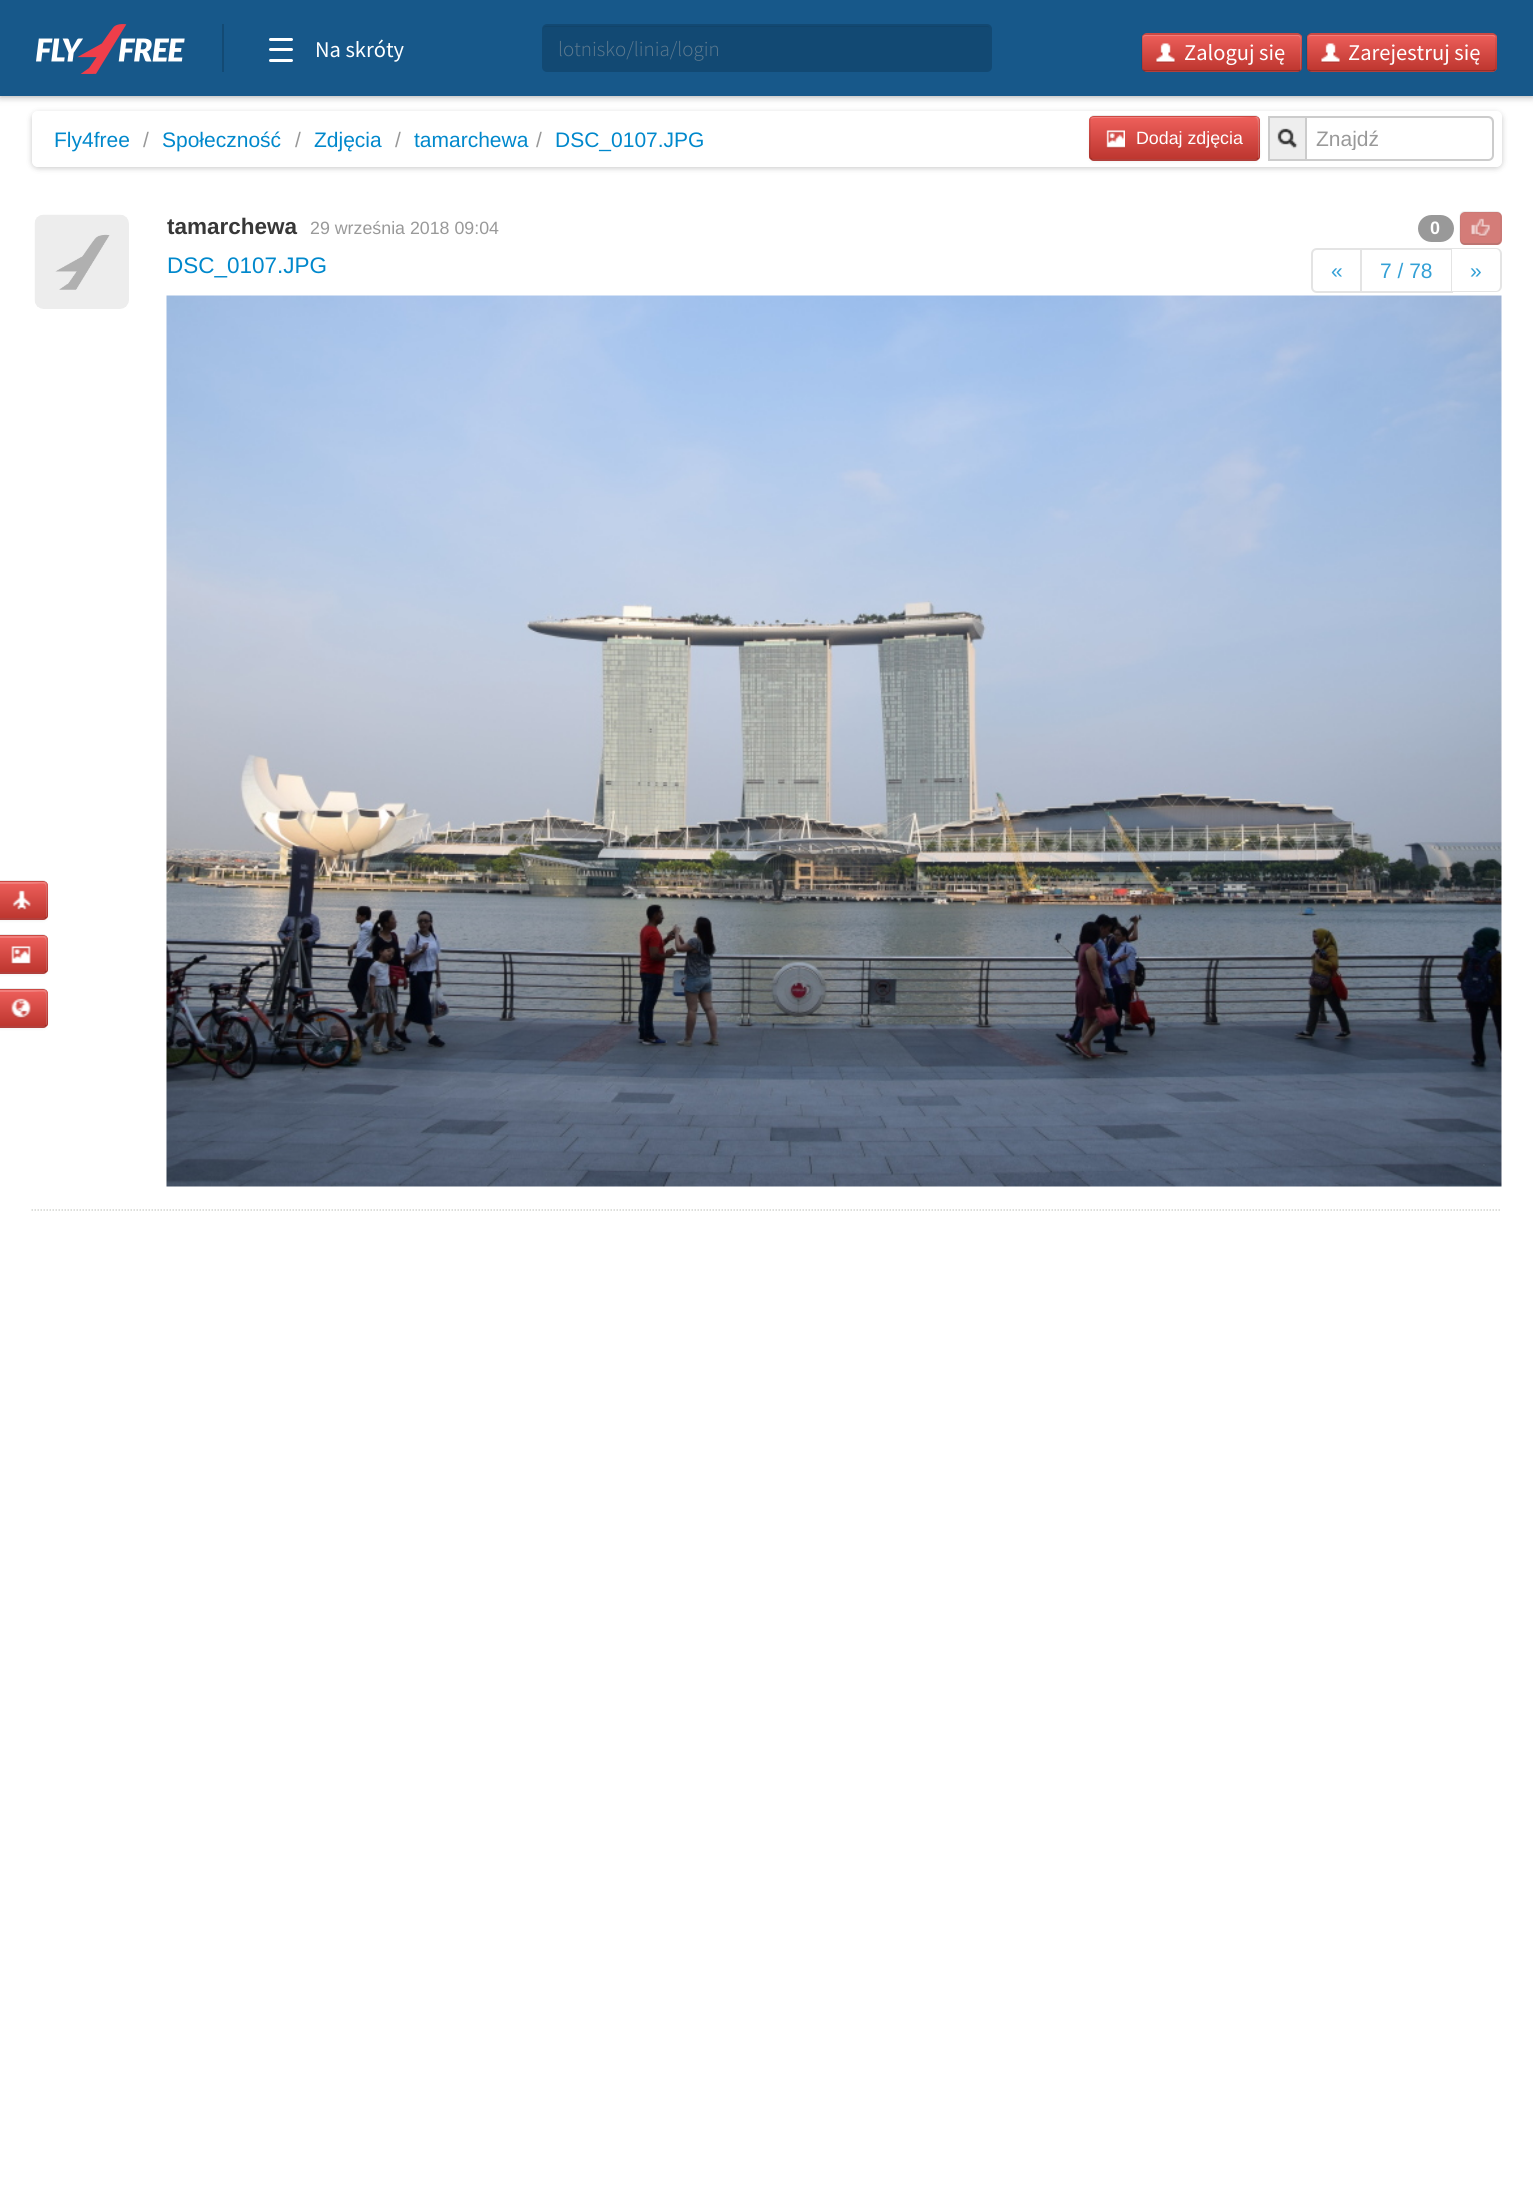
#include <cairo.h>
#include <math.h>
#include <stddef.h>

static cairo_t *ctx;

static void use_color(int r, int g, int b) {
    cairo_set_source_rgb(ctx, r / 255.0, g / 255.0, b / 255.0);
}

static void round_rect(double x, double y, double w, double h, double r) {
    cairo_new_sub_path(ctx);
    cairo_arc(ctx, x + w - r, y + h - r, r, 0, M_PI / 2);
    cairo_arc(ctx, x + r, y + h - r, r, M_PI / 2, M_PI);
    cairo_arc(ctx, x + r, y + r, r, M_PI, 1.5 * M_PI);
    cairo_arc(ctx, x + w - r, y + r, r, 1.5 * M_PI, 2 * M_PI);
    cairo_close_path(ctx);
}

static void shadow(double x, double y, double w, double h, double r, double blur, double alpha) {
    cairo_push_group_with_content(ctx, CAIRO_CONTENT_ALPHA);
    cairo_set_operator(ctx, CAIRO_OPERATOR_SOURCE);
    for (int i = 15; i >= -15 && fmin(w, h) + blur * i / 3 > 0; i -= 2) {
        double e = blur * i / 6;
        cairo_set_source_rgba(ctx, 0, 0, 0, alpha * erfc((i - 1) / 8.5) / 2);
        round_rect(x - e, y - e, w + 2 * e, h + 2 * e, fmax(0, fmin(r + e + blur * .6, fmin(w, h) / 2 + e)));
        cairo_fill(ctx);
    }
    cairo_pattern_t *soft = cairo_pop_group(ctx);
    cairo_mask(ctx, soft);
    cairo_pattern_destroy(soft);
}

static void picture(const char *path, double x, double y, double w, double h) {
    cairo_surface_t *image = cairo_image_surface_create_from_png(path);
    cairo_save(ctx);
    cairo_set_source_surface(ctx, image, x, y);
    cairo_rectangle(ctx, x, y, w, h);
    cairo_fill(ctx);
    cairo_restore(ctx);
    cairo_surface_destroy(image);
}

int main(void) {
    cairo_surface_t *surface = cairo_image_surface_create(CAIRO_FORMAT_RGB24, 1533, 2200);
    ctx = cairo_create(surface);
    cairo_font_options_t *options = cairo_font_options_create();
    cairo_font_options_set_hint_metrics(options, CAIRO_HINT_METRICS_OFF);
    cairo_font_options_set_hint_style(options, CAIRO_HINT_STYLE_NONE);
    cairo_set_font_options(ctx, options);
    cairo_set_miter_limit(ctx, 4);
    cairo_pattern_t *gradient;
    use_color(255, 255, 255);
    cairo_paint(ctx);
    use_color(0, 0, 0);
    shadow(0, 0, 1533, 96, 0, 4, 0.4);
    use_color(23, 88, 138);
    cairo_rectangle(ctx, 0, 0, 1533, 96);
    cairo_fill(ctx);
    picture("img1.png", 36, 24, 149, 50);
    use_color(19, 74, 116);
    cairo_rectangle(ctx, 222, 24, 2, 48);
    cairo_fill(ctx);
    use_color(255, 255, 255);
    round_rect(269, 59, 24, 3, 1.5);
    cairo_fill(ctx);
    round_rect(269, 38, 24, 3, 1.5);
    cairo_fill(ctx);
    round_rect(269, 48, 24, 3, 1.5);
    cairo_fill(ctx);
    cairo_select_font_face(ctx, "Source Sans Pro", CAIRO_FONT_SLANT_NORMAL, CAIRO_FONT_WEIGHT_NORMAL);
    cairo_set_font_size(ctx, 22.5);
    cairo_move_to(ctx, 315, 57);
    cairo_show_text(ctx, "Na skróty");
    use_color(18, 73, 115);
    round_rect(542, 24, 450, 48, 5);
    cairo_fill(ctx);
    use_color(17, 68, 106);
    cairo_new_path(ctx);
    cairo_move_to(ctx, 546, 27);
    cairo_line_to(ctx, 987, 27);
    cairo_curve_to(ctx, 989, 27, 990, 28, 990, 30);
    cairo_curve_to(ctx, 990, 28, 989, 26, 987, 26);
    cairo_line_to(ctx, 545, 26);
    cairo_line_to(ctx, 543, 28);
    cairo_line_to(ctx, 543, 30);
    cairo_curve_to(ctx, 543, 28, 544, 27, 546, 27);
    cairo_close_path(ctx);
    cairo_fill(ctx);
    cairo_select_font_face(ctx, "Source Sans Pro Light", CAIRO_FONT_SLANT_NORMAL, CAIRO_FONT_WEIGHT_NORMAL);
    cairo_set_font_size(ctx, 21);
    use_color(94, 122, 143);
    cairo_move_to(ctx, 558, 56);
    cairo_show_text(ctx, "lotnisko/linia/login");
    use_color(218, 79, 73);
    round_rect(1142, 33, 160, 39, 5);
    cairo_fill(ctx);
    cairo_save(ctx);
    round_rect(1142, 33, 160, 39, 5);
    cairo_clip(ctx);
    gradient = cairo_pattern_create_linear(1222, 34, 1222, 71);
    cairo_pattern_add_color_stop_rgba(gradient, 0, 0.933, 0.373, 0.357, 1);
    cairo_pattern_add_color_stop_rgba(gradient, 1, 0.741, 0.212, 0.184, 1);
    cairo_set_source(ctx, gradient);
    cairo_pattern_destroy(gradient);
    cairo_rectangle(ctx, 1142, 35, 160, 36);
    cairo_fill(ctx);
    cairo_restore(ctx);
    cairo_set_source_rgba(ctx, 1, 1, 1, 0.2);
    cairo_new_path(ctx);
    cairo_move_to(ctx, 1146, 36);
    cairo_line_to(ctx, 1298, 36);
    cairo_curve_to(ctx, 1302, 36, 1300, 48, 1300, 49);
    cairo_line_to(ctx, 1300, 70);
    cairo_curve_to(ctx, 1301, 70, 1301, 69, 1301, 68);
    cairo_line_to(ctx, 1301, 38);
    cairo_curve_to(ctx, 1301, 36, 1300, 35, 1298, 35);
    cairo_line_to(ctx, 1146, 35);
    cairo_curve_to(ctx, 1144, 35, 1143, 36, 1143, 38);
    cairo_line_to(ctx, 1143, 39);
    cairo_curve_to(ctx, 1143, 37, 1144, 36, 1146, 36);
    cairo_close_path(ctx);
    cairo_fill(ctx);
    cairo_new_path(ctx);
    cairo_move_to(ctx, 1300, 70);
    cairo_curve_to(ctx, 1299.5, 71, 1298.5, 71, 1297.5, 71);
    cairo_line_to(ctx, 1146, 71);
    cairo_curve_to(ctx, 1145, 71, 1144, 71, 1143.5, 70);
    cairo_set_source_rgba(ctx, 0, 0, 0, 0.25);
    cairo_set_line_width(ctx, 1.5);
    cairo_stroke(ctx);
    cairo_new_path(ctx);
    cairo_move_to(ctx, 1143.5, 70);
    cairo_curve_to(ctx, 1142.5, 69.5, 1142, 68.5, 1142, 67.5);
    cairo_line_to(ctx, 1142, 37.5);
    cairo_curve_to(ctx, 1142, 36.5, 1142.5, 35.5, 1143.5, 35);
    cairo_curve_to(ctx, 1144, 34, 1145, 34, 1146, 34);
    cairo_line_to(ctx, 1297.5, 34);
    cairo_curve_to(ctx, 1298.5, 34, 1299.5, 34, 1300, 35);
    cairo_curve_to(ctx, 1301, 35.5, 1301, 36.5, 1301, 37.5);
    cairo_line_to(ctx, 1301, 67.5);
    cairo_curve_to(ctx, 1301, 68.5, 1301, 69.5, 1300, 70);
    cairo_set_source_rgba(ctx, 0, 0, 0, 0.1);
    cairo_stroke(ctx);
    picture("img2.png", 1156, 43, 19, 20);
    cairo_select_font_face(ctx, "Source Sans Pro", CAIRO_FONT_SLANT_NORMAL, CAIRO_FONT_WEIGHT_NORMAL);
    cairo_set_font_size(ctx, 22.5);
    use_color(255, 255, 255);
    cairo_move_to(ctx, 1184, 60);
    cairo_show_text(ctx, "Zaloguj się");
    use_color(218, 79, 73);
    round_rect(1307, 33, 190, 39, 5);
    cairo_fill(ctx);
    cairo_save(ctx);
    round_rect(1307, 33, 190, 39, 5);
    cairo_clip(ctx);
    gradient = cairo_pattern_create_linear(1402, 34, 1402, 71);
    cairo_pattern_add_color_stop_rgba(gradient, 0, 0.933, 0.373, 0.357, 1);
    cairo_pattern_add_color_stop_rgba(gradient, 1, 0.741, 0.212, 0.184, 1);
    cairo_set_source(ctx, gradient);
    cairo_pattern_destroy(gradient);
    cairo_rectangle(ctx, 1307, 35, 190, 36);
    cairo_fill(ctx);
    cairo_restore(ctx);
    use_color(240, 125, 122);
    cairo_new_path(ctx);
    cairo_move_to(ctx, 1311, 36);
    cairo_line_to(ctx, 1492, 36);
    cairo_curve_to(ctx, 1494, 36, 1496, 37, 1496, 39);
    cairo_curve_to(ctx, 1496, 37, 1495, 35, 1493, 35);
    cairo_line_to(ctx, 1311, 35);
    cairo_curve_to(ctx, 1309, 35, 1308, 37, 1308, 39);
    cairo_curve_to(ctx, 1308, 37, 1309, 36, 1311, 36);
    cairo_close_path(ctx);
    cairo_fill(ctx);
    cairo_new_path(ctx);
    cairo_move_to(ctx, 1495, 70);
    cairo_line_to(ctx, 1492.5, 71);
    cairo_line_to(ctx, 1310.5, 71);
    cairo_line_to(ctx, 1308.5, 70);
    cairo_set_source_rgba(ctx, 0, 0, 0, 0.25);
    cairo_stroke(ctx);
    cairo_new_path(ctx);
    cairo_move_to(ctx, 1308.5, 70);
    cairo_curve_to(ctx, 1307.5, 69.5, 1307, 68.5, 1307, 67.5);
    cairo_line_to(ctx, 1307, 37.5);
    cairo_curve_to(ctx, 1307, 36.5, 1307.5, 35.5, 1308.5, 35);
    cairo_curve_to(ctx, 1309, 34, 1310, 34, 1311, 34);
    cairo_line_to(ctx, 1492.5, 34);
    cairo_curve_to(ctx, 1493.5, 34, 1494.5, 34, 1495, 35);
    cairo_curve_to(ctx, 1496, 35.5, 1496, 36.5, 1496, 37.5);
    cairo_line_to(ctx, 1496, 67.5);
    cairo_curve_to(ctx, 1496, 68.5, 1496, 69.5, 1495, 70);
    cairo_set_source_rgba(ctx, 0, 0, 0, 0.1);
    cairo_stroke(ctx);
    picture("img2.png", 1321, 43, 19, 20);
    use_color(255, 255, 255);
    cairo_move_to(ctx, 1348, 60);
    cairo_show_text(ctx, "Zarejestruj się");
    cairo_save(ctx);
    cairo_set_fill_rule(ctx, CAIRO_FILL_RULE_EVEN_ODD);
    cairo_new_path(ctx);
    cairo_move_to(ctx, 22, 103);
    cairo_line_to(ctx, 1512, 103);
    cairo_line_to(ctx, 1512, 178);
    cairo_line_to(ctx, 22, 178);
    cairo_close_path(ctx);
    cairo_move_to(ctx, 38, 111);
    cairo_line_to(ctx, 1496, 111);
    cairo_curve_to(ctx, 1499.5, 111, 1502, 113.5, 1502, 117);
    cairo_line_to(ctx, 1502, 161);
    cairo_curve_to(ctx, 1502, 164.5, 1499.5, 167, 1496, 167);
    cairo_line_to(ctx, 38, 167);
    cairo_curve_to(ctx, 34.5, 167, 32, 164.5, 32, 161);
    cairo_line_to(ctx, 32, 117);
    cairo_curve_to(ctx, 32, 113.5, 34.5, 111, 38, 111);
    cairo_close_path(ctx);
    cairo_clip(ctx);
    use_color(0, 0, 0);
    shadow(32, 113, 1470, 55, 6, 3, 0.22);
    cairo_restore(ctx);
    cairo_select_font_face(ctx, "Liberation Sans", CAIRO_FONT_SLANT_NORMAL, CAIRO_FONT_WEIGHT_NORMAL);
    cairo_set_font_size(ctx, 21);
    use_color(0, 136, 204);
    cairo_move_to(ctx, 54, 147);
    cairo_show_text(ctx, "Fly4free");
    use_color(153, 153, 153);
    cairo_move_to(ctx, 143, 147);
    cairo_show_text(ctx, "/");
    use_color(0, 136, 204);
    cairo_move_to(ctx, 162, 147);
    cairo_show_text(ctx, "Społeczność");
    use_color(153, 153, 153);
    cairo_move_to(ctx, 295, 147);
    cairo_show_text(ctx, "/");
    use_color(0, 136, 204);
    cairo_move_to(ctx, 314, 147);
    cairo_show_text(ctx, "Zdjęcia");
    use_color(153, 153, 153);
    cairo_move_to(ctx, 395, 147);
    cairo_show_text(ctx, "/");
    use_color(0, 136, 204);
    cairo_move_to(ctx, 414, 147);
    cairo_show_text(ctx, "tamarchewa");
    use_color(153, 153, 153);
    cairo_move_to(ctx, 536, 147);
    cairo_show_text(ctx, "/");
    use_color(0, 136, 204);
    cairo_move_to(ctx, 555, 147);
    cairo_show_text(ctx, "DSC_0107.JPG");
    use_color(0, 0, 0);
    shadow(1089, 117, 171, 45, 5, 1.5, 0.05);
    use_color(218, 79, 73);
    round_rect(1089, 116, 171, 45, 5);
    cairo_fill(ctx);
    cairo_save(ctx);
    round_rect(1089, 116, 171, 45, 5);
    cairo_clip(ctx);
    gradient = cairo_pattern_create_linear(1175, 117, 1175, 159);
    cairo_pattern_add_color_stop_rgba(gradient, 0, 0.933, 0.373, 0.357, 1);
    cairo_pattern_add_color_stop_rgba(gradient, 1, 0.741, 0.212, 0.184, 1);
    cairo_set_source(ctx, gradient);
    cairo_pattern_destroy(gradient);
    cairo_rectangle(ctx, 1089, 117, 171, 42);
    cairo_fill(ctx);
    cairo_restore(ctx);
    cairo_set_source_rgba(ctx, 1, 1, 1, 0.2);
    cairo_new_path(ctx);
    cairo_move_to(ctx, 1094, 118);
    cairo_line_to(ctx, 1229, 118);
    cairo_curve_to(ctx, 1260, 118, 1258, 111, 1258, 134);
    cairo_line_to(ctx, 1258, 158);
    cairo_curve_to(ctx, 1259, 158, 1259, 157, 1259, 156);
    cairo_line_to(ctx, 1259, 120);
    cairo_curve_to(ctx, 1259, 118, 1258, 117, 1256, 117);
    cairo_line_to(ctx, 1094, 117);
    cairo_curve_to(ctx, 1093, 117, 1091, 118, 1091, 119);
    cairo_close_path(ctx);
    cairo_fill(ctx);
    cairo_new_path(ctx);
    cairo_move_to(ctx, 1258, 158.5);
    cairo_curve_to(ctx, 1257.5, 159.5, 1256.5, 160, 1255.5, 160);
    cairo_line_to(ctx, 1093.5, 160);
    cairo_curve_to(ctx, 1092.5, 160, 1091.5, 159.5, 1091, 158.5);
    cairo_set_source_rgba(ctx, 0, 0, 0, 0.25);
    cairo_stroke(ctx);
    cairo_new_path(ctx);
    cairo_move_to(ctx, 1091, 158.5);
    cairo_curve_to(ctx, 1088.5, 156, 1090, 147, 1090, 144);
    cairo_line_to(ctx, 1090, 126);
    cairo_curve_to(ctx, 1090, 123, 1088.5, 116.5, 1093.5, 116);
    cairo_line_to(ctx, 1255.5, 116);
    cairo_curve_to(ctx, 1260.5, 116.5, 1259, 123, 1259, 126);
    cairo_line_to(ctx, 1259, 144);
    cairo_curve_to(ctx, 1259, 147, 1260.5, 156, 1258, 158.5);
    cairo_set_source_rgba(ctx, 0, 0, 0, 0.1);
    cairo_stroke(ctx);
    picture("img3.png", 1106, 130, 19, 19);
    cairo_set_font_size(ctx, 17.8);
    use_color(255, 255, 255);
    cairo_move_to(ctx, 1136, 144);
    cairo_show_text(ctx, "Dodaj zdjęcia");
    use_color(238, 238, 238);
    cairo_rectangle(ctx, 1269, 117, 37, 43);
    cairo_fill_preserve(ctx);
    use_color(204, 204, 204);
    cairo_set_line_width(ctx, 2);
    cairo_stroke(ctx);
    picture("img4.png", 1277, 128, 21, 21);
    use_color(255, 255, 255);
    cairo_new_path(ctx);
    cairo_move_to(ctx, 1305, 116);
    cairo_line_to(ctx, 1488, 116);
    cairo_curve_to(ctx, 1491.5, 116, 1494, 118.5, 1494, 122);
    cairo_line_to(ctx, 1494, 155);
    cairo_curve_to(ctx, 1494, 158.5, 1491.5, 161, 1488, 161);
    cairo_line_to(ctx, 1305, 161);
    cairo_close_path(ctx);
    cairo_fill(ctx);
    use_color(236, 236, 236);
    cairo_new_path(ctx);
    cairo_move_to(ctx, 1307, 117);
    cairo_line_to(ctx, 1307, 118);
    cairo_line_to(ctx, 1488, 118);
    cairo_curve_to(ctx, 1494, 118, 1492, 132, 1492, 134);
    cairo_line_to(ctx, 1492, 157);
    cairo_curve_to(ctx, 1493, 156, 1493, 155, 1493, 154);
    cairo_line_to(ctx, 1493, 122);
    cairo_curve_to(ctx, 1493, 119, 1491, 117, 1488, 117);
    cairo_close_path(ctx);
    cairo_fill(ctx);
    cairo_new_path(ctx);
    cairo_move_to(ctx, 1306, 117);
    cairo_line_to(ctx, 1488, 117);
    cairo_curve_to(ctx, 1491, 117, 1493, 119, 1493, 122);
    cairo_line_to(ctx, 1493, 155);
    cairo_curve_to(ctx, 1493, 158, 1491, 160, 1488, 160);
    cairo_line_to(ctx, 1306, 160);
    cairo_close_path(ctx);
    use_color(204, 204, 204);
    cairo_stroke(ctx);
    cairo_save(ctx);
    cairo_rectangle(ctx, 1316, 126, 168, 24);
    cairo_clip(ctx);
    cairo_set_font_size(ctx, 21);
    use_color(153, 153, 153);
    cairo_move_to(ctx, 1316, 146);
    cairo_show_text(ctx, "Znajdź");
    cairo_restore(ctx);
    cairo_new_path(ctx);
    cairo_move_to(ctx, 31.5, 1210);
    cairo_line_to(ctx, 1501.5, 1210);
    use_color(211, 213, 208);
    cairo_set_line_width(ctx, 1.5);
    cairo_set_dash(ctx, (double[]){1.5, 1.5}, 2, 0);
    cairo_stroke(ctx);
    picture("img5.png", 34, 214, 95, 95);
    cairo_select_font_face(ctx, "Liberation Sans", CAIRO_FONT_SLANT_NORMAL, CAIRO_FONT_WEIGHT_BOLD);
    cairo_set_font_size(ctx, 22.5);
    use_color(56, 56, 56);
    cairo_move_to(ctx, 167, 234);
    cairo_show_text(ctx, "tamarchewa");
    cairo_select_font_face(ctx, "Liberation Sans", CAIRO_FONT_SLANT_NORMAL, CAIRO_FONT_WEIGHT_NORMAL);
    cairo_set_font_size(ctx, 17.8);
    use_color(153, 153, 153);
    cairo_move_to(ctx, 310, 234);
    cairo_show_text(ctx, "29 września 2018 09:04");
    round_rect(1418, 215, 36, 27, 13.5);
    cairo_fill(ctx);
    cairo_select_font_face(ctx, "Liberation Sans", CAIRO_FONT_SLANT_NORMAL, CAIRO_FONT_WEIGHT_BOLD);
    cairo_set_font_size(ctx, 18);
    use_color(255, 255, 255);
    cairo_move_to(ctx, 1430, 234);
    cairo_show_text(ctx, "0");
    use_color(212, 124, 120);
    round_rect(1460, 212, 42, 33, 5);
    cairo_fill(ctx);
    cairo_new_path(ctx);
    cairo_move_to(ctx, 1499.5, 242.5);
    cairo_curve_to(ctx, 1499, 243.5, 1498, 244, 1497, 244);
    cairo_line_to(ctx, 1464, 244);
    cairo_curve_to(ctx, 1463, 244, 1462, 243.5, 1461.5, 242.5);
    cairo_set_source_rgba(ctx, 0.349, 0.349, 0.349, 0.25);
    cairo_set_dash(ctx, NULL, 0, 0);
    cairo_stroke(ctx);
    cairo_new_path(ctx);
    cairo_move_to(ctx, 1461.5, 242.5);
    cairo_curve_to(ctx, 1459, 240.5, 1460, 231, 1460, 228);
    cairo_curve_to(ctx, 1460, 208, 1458.5, 212, 1480.5, 212);
    cairo_curve_to(ctx, 1502.5, 212, 1501, 208, 1501, 228);
    cairo_curve_to(ctx, 1501, 231, 1502, 240.5, 1499.5, 242.5);
    cairo_set_source_rgba(ctx, 0.349, 0.349, 0.349, 0.1);
    cairo_stroke(ctx);
    picture("img6.png", 1471, 218, 19, 19);
    cairo_select_font_face(ctx, "Liberation Sans", CAIRO_FONT_SLANT_NORMAL, CAIRO_FONT_WEIGHT_NORMAL);
    cairo_set_font_size(ctx, 22.5);
    use_color(0, 136, 204);
    cairo_move_to(ctx, 167, 273);
    cairo_show_text(ctx, "DSC_0107.JPG");
    cairo_new_path(ctx);
    cairo_move_to(ctx, 1317, 249);
    cairo_line_to(ctx, 1361, 249);
    cairo_line_to(ctx, 1361, 292);
    cairo_line_to(ctx, 1317, 292);
    cairo_curve_to(ctx, 1314, 292, 1312, 290, 1312, 287);
    cairo_line_to(ctx, 1312, 254);
    cairo_curve_to(ctx, 1312, 251, 1314, 249, 1317, 249);
    cairo_close_path(ctx);
    use_color(228, 228, 228);
    cairo_set_line_width(ctx, 2);
    cairo_stroke(ctx);
    cairo_set_font_size(ctx, 21);
    use_color(51, 160, 214);
    cairo_move_to(ctx, 1331, 278);
    cairo_show_text(ctx, "«");
    use_color(228, 228, 228);
    cairo_rectangle(ctx, 1362, 248, 90, 2);
    cairo_fill(ctx);
    cairo_rectangle(ctx, 1451, 248, 2, 45);
    cairo_fill(ctx);
    cairo_rectangle(ctx, 1362, 291, 90, 2);
    cairo_fill(ctx);
    use_color(51, 160, 214);
    cairo_move_to(ctx, 1380, 278);
    cairo_show_text(ctx, "7 / 78");
    use_color(255, 255, 255);
    cairo_new_path(ctx);
    cairo_move_to(ctx, 1452, 249);
    cairo_line_to(ctx, 1495, 249);
    cairo_curve_to(ctx, 1498, 249, 1500, 251, 1500, 254);
    cairo_line_to(ctx, 1500, 286);
    cairo_curve_to(ctx, 1500, 289, 1498, 291, 1495, 291);
    cairo_line_to(ctx, 1452, 291);
    cairo_close_path(ctx);
    cairo_fill(ctx);
    use_color(228, 228, 228);
    cairo_set_fill_rule(ctx, CAIRO_FILL_RULE_EVEN_ODD);
    cairo_new_path(ctx);
    cairo_move_to(ctx, 1452, 248);
    cairo_line_to(ctx, 1496, 248);
    cairo_curve_to(ctx, 1499, 248, 1502, 250, 1502, 254);
    cairo_line_to(ctx, 1502, 286);
    cairo_curve_to(ctx, 1502, 290, 1499, 292, 1496, 292);
    cairo_line_to(ctx, 1452, 292);
    cairo_close_path(ctx);
    cairo_move_to(ctx, 1452, 249);
    cairo_line_to(ctx, 1496, 249);
    cairo_curve_to(ctx, 1498, 249, 1500, 251, 1500, 254);
    cairo_line_to(ctx, 1500, 286);
    cairo_curve_to(ctx, 1500, 289, 1498, 291, 1496, 291);
    cairo_line_to(ctx, 1452, 291);
    cairo_close_path(ctx);
    cairo_fill(ctx);
    use_color(51, 160, 214);
    cairo_move_to(ctx, 1470, 278);
    cairo_show_text(ctx, "»");
    picture("img7.png", 166, 295, 1336, 892);
    use_color(0, 0, 0);
    shadow(-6, 882, 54, 39, 5, 1.5, 0.05);
    use_color(218, 79, 73);
    round_rect(-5, 881, 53, 39, 5);
    cairo_fill(ctx);
    cairo_save(ctx);
    cairo_set_fill_rule(ctx, CAIRO_FILL_RULE_WINDING);
    round_rect(-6, 881, 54, 39, 5);
    cairo_clip(ctx);
    gradient = cairo_pattern_create_linear(21, 882, 21, 918);
    cairo_pattern_add_color_stop_rgba(gradient, 0, 0.933, 0.373, 0.357, 1);
    cairo_pattern_add_color_stop_rgba(gradient, 1, 0.741, 0.212, 0.184, 1);
    cairo_set_source(ctx, gradient);
    cairo_pattern_destroy(gradient);
    cairo_rectangle(ctx, 0, 882, 48, 36);
    cairo_fill(ctx);
    cairo_restore(ctx);
    cairo_set_source_rgba(ctx, 1, 1, 1, 0.2);
    cairo_set_fill_rule(ctx, CAIRO_FILL_RULE_WINDING);
    cairo_new_path(ctx);
    cairo_move_to(ctx, -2, 884);
    cairo_line_to(ctx, 29, 884);
    cairo_curve_to(ctx, 48, 884, 46, 880, 46, 896);
    cairo_line_to(ctx, 46, 917);
    cairo_curve_to(ctx, 47, 917, 47, 916, 47, 915);
    cairo_line_to(ctx, 47, 885);
    cairo_curve_to(ctx, 47, 883, 46, 882, 44, 882);
    cairo_line_to(ctx, -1, 882);
    cairo_curve_to(ctx, -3, 882, -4, 883, -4, 885);
    cairo_line_to(ctx, -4, 886);
    cairo_curve_to(ctx, -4, 885, -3, 884, -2, 884);
    cairo_close_path(ctx);
    cairo_fill(ctx);
    cairo_new_path(ctx);
    cairo_move_to(ctx, 46, 917.5);
    cairo_curve_to(ctx, 45.5, 918.5, 44.5, 919, 43.5, 919);
    cairo_line_to(ctx, -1.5, 919);
    cairo_curve_to(ctx, -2.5, 919, -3.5, 918.5, -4, 917.5);
    cairo_set_source_rgba(ctx, 0, 0, 0, 0.25);
    cairo_set_line_width(ctx, 1.5);
    cairo_stroke(ctx);
    cairo_new_path(ctx);
    cairo_move_to(ctx, -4, 917.5);
    cairo_curve_to(ctx, -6, 916, -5, 912, -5, 910);
    cairo_line_to(ctx, -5, 890);
    cairo_curve_to(ctx, -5, 880, -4.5, 881, 6, 881);
    cairo_line_to(ctx, 36, 881);
    cairo_curve_to(ctx, 46.5, 881, 47, 880, 47, 890);
    cairo_line_to(ctx, 47, 910);
    cairo_curve_to(ctx, 47, 912, 48, 916, 46, 917.5);
    cairo_set_source_rgba(ctx, 0, 0, 0, 0.1);
    cairo_stroke(ctx);
    picture("img8.png", 12, 890, 19, 21);
    use_color(0, 0, 0);
    shadow(-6, 936, 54, 39, 5, 1.5, 0.05);
    use_color(218, 79, 73);
    round_rect(-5, 935, 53, 39, 5);
    cairo_fill(ctx);
    cairo_save(ctx);
    round_rect(-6, 935, 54, 39, 5);
    cairo_clip(ctx);
    gradient = cairo_pattern_create_linear(21, 936, 21, 972);
    cairo_pattern_add_color_stop_rgba(gradient, 0, 0.933, 0.373, 0.357, 1);
    cairo_pattern_add_color_stop_rgba(gradient, 1, 0.741, 0.212, 0.184, 1);
    cairo_set_source(ctx, gradient);
    cairo_pattern_destroy(gradient);
    cairo_rectangle(ctx, 0, 936, 48, 36);
    cairo_fill(ctx);
    cairo_restore(ctx);
    cairo_set_source_rgba(ctx, 1, 1, 1, 0.2);
    cairo_new_path(ctx);
    cairo_move_to(ctx, -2, 938);
    cairo_line_to(ctx, 29, 938);
    cairo_curve_to(ctx, 48, 938, 46, 934, 46, 950);
    cairo_line_to(ctx, 46, 971);
    cairo_curve_to(ctx, 47, 971, 47, 970, 47, 969);
    cairo_line_to(ctx, 47, 939);
    cairo_curve_to(ctx, 47, 937, 46, 936, 44, 936);
    cairo_line_to(ctx, -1, 936);
    cairo_curve_to(ctx, -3, 936, -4, 937, -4, 939);
    cairo_line_to(ctx, -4, 940);
    cairo_curve_to(ctx, -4, 939, -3, 938, -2, 938);
    cairo_close_path(ctx);
    cairo_fill(ctx);
    cairo_new_path(ctx);
    cairo_move_to(ctx, 46, 971.5);
    cairo_curve_to(ctx, 45.5, 972.5, 44.5, 973, 43.5, 973);
    cairo_line_to(ctx, -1.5, 973);
    cairo_curve_to(ctx, -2.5, 973, -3.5, 972.5, -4, 971.5);
    cairo_set_source_rgba(ctx, 0, 0, 0, 0.25);
    cairo_stroke(ctx);
    cairo_new_path(ctx);
    cairo_move_to(ctx, -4, 971.5);
    cairo_curve_to(ctx, -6, 970, -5, 966, -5, 964);
    cairo_line_to(ctx, -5, 944);
    cairo_curve_to(ctx, -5, 934, -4.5, 935, 6, 935);
    cairo_line_to(ctx, 36, 935);
    cairo_curve_to(ctx, 46.5, 935, 47, 934, 47, 944);
    cairo_line_to(ctx, 47, 964);
    cairo_curve_to(ctx, 47, 966, 48, 970, 46, 971.5);
    cairo_set_source_rgba(ctx, 0, 0, 0, 0.1);
    cairo_stroke(ctx);
    picture("img9.png", 11, 946, 20, 19);
    use_color(0, 0, 0);
    shadow(-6, 990, 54, 39, 5, 1.5, 0.05);
    use_color(218, 79, 73);
    round_rect(-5, 989, 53, 39, 5);
    cairo_fill(ctx);
    cairo_save(ctx);
    round_rect(-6, 989, 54, 39, 5);
    cairo_clip(ctx);
    gradient = cairo_pattern_create_linear(21, 990, 21, 1026);
    cairo_pattern_add_color_stop_rgba(gradient, 0, 0.933, 0.373, 0.357, 1);
    cairo_pattern_add_color_stop_rgba(gradient, 1, 0.741, 0.212, 0.184, 1);
    cairo_set_source(ctx, gradient);
    cairo_pattern_destroy(gradient);
    cairo_rectangle(ctx, 0, 990, 48, 36);
    cairo_fill(ctx);
    cairo_restore(ctx);
    cairo_set_source_rgba(ctx, 1, 1, 1, 0.2);
    cairo_new_path(ctx);
    cairo_move_to(ctx, -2, 992);
    cairo_line_to(ctx, 29, 992);
    cairo_curve_to(ctx, 48, 992, 46, 988, 46, 1004);
    cairo_line_to(ctx, 46, 1025);
    cairo_curve_to(ctx, 47, 1025, 47, 1024, 47, 1023);
    cairo_line_to(ctx, 47, 993);
    cairo_curve_to(ctx, 47, 991, 46, 990, 44, 990);
    cairo_line_to(ctx, -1, 990);
    cairo_curve_to(ctx, -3, 990, -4, 991, -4, 993);
    cairo_line_to(ctx, -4, 994);
    cairo_curve_to(ctx, -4, 993, -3, 992, -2, 992);
    cairo_close_path(ctx);
    cairo_fill(ctx);
    cairo_new_path(ctx);
    cairo_move_to(ctx, 46, 1025.5);
    cairo_curve_to(ctx, 45.5, 1026.5, 44.5, 1027, 43.5, 1027);
    cairo_line_to(ctx, -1.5, 1027);
    cairo_curve_to(ctx, -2.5, 1027, -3.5, 1026.5, -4, 1025.5);
    cairo_set_source_rgba(ctx, 0, 0, 0, 0.25);
    cairo_stroke(ctx);
    cairo_new_path(ctx);
    cairo_move_to(ctx, -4, 1025.5);
    cairo_curve_to(ctx, -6, 1024, -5, 1020, -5, 1018);
    cairo_line_to(ctx, -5, 998);
    cairo_curve_to(ctx, -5, 988, -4.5, 989, 6, 989);
    cairo_line_to(ctx, 36, 989);
    cairo_curve_to(ctx, 46.5, 989, 47, 988, 47, 998);
    cairo_line_to(ctx, 47, 1018);
    cairo_curve_to(ctx, 47, 1020, 48, 1024, 46, 1025.5);
    cairo_set_source_rgba(ctx, 0, 0, 0, 0.1);
    cairo_stroke(ctx);
    picture("img10.png", 11, 998, 20, 21);
    cairo_surface_write_to_png(surface, "result.png");
    cairo_font_options_destroy(options);
    cairo_destroy(ctx);
    cairo_surface_destroy(surface);
    return 0;
}
